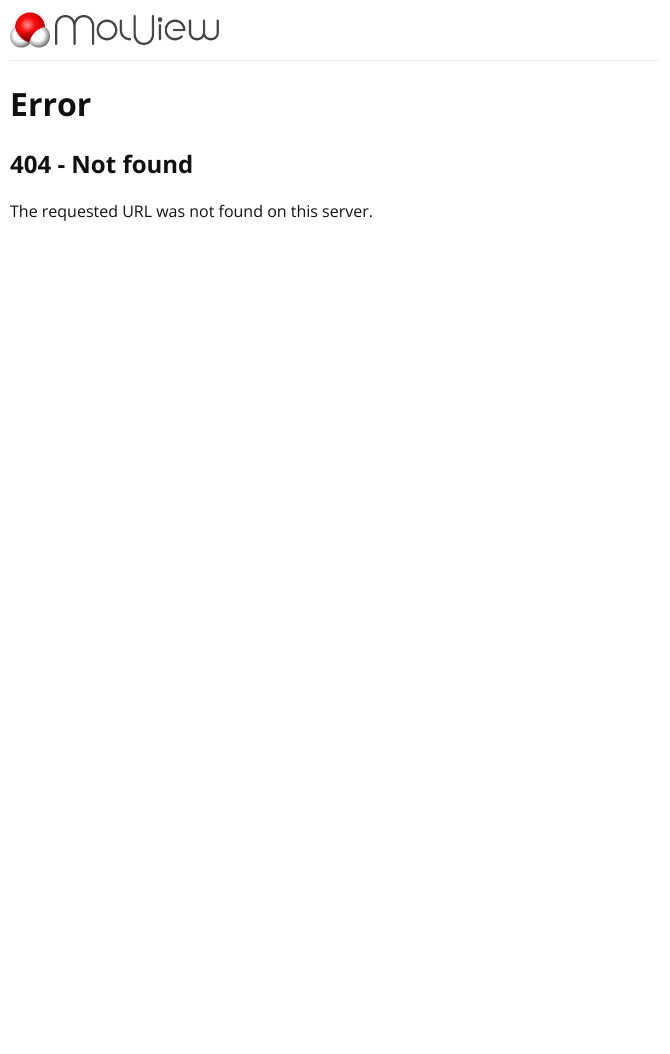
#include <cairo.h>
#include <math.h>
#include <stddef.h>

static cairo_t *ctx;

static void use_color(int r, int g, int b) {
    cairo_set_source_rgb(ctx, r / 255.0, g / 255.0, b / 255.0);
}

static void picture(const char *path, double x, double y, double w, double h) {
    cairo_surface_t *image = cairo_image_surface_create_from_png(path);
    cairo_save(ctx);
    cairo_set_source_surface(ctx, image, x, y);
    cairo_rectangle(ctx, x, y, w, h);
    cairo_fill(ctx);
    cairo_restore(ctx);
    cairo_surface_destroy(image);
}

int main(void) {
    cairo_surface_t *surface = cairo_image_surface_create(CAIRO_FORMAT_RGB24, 670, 1054);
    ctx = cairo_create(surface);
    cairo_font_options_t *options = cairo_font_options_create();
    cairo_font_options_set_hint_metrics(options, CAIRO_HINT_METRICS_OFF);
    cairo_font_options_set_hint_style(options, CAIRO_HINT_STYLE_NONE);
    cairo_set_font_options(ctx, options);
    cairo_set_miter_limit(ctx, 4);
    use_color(255, 255, 255);
    cairo_paint(ctx);
    use_color(238, 238, 238);
    cairo_rectangle(ctx, 10, 60, 650, 1);
    cairo_fill(ctx);
    picture("img1.png", 10, 12, 40, 36);
    picture("img2.png", 55, 14, 164, 31);
    cairo_select_font_face(ctx, "Open Sans", CAIRO_FONT_SLANT_NORMAL, CAIRO_FONT_WEIGHT_BOLD);
    cairo_set_font_size(ctx, 32);
    use_color(17, 17, 17);
    cairo_move_to(ctx, 10, 116);
    cairo_show_text(ctx, "Error");
    cairo_set_font_size(ctx, 24);
    cairo_move_to(ctx, 10, 173);
    cairo_show_text(ctx, "404 - Not found");
    cairo_select_font_face(ctx, "Open Sans", CAIRO_FONT_SLANT_NORMAL, CAIRO_FONT_WEIGHT_NORMAL);
    cairo_set_font_size(ctx, 16);
    cairo_move_to(ctx, 10, 217);
    cairo_show_text(ctx, "The requested URL was not found on this server.");
    cairo_surface_write_to_png(surface, "result.png");
    cairo_font_options_destroy(options);
    cairo_destroy(ctx);
    cairo_surface_destroy(surface);
    return 0;
}
